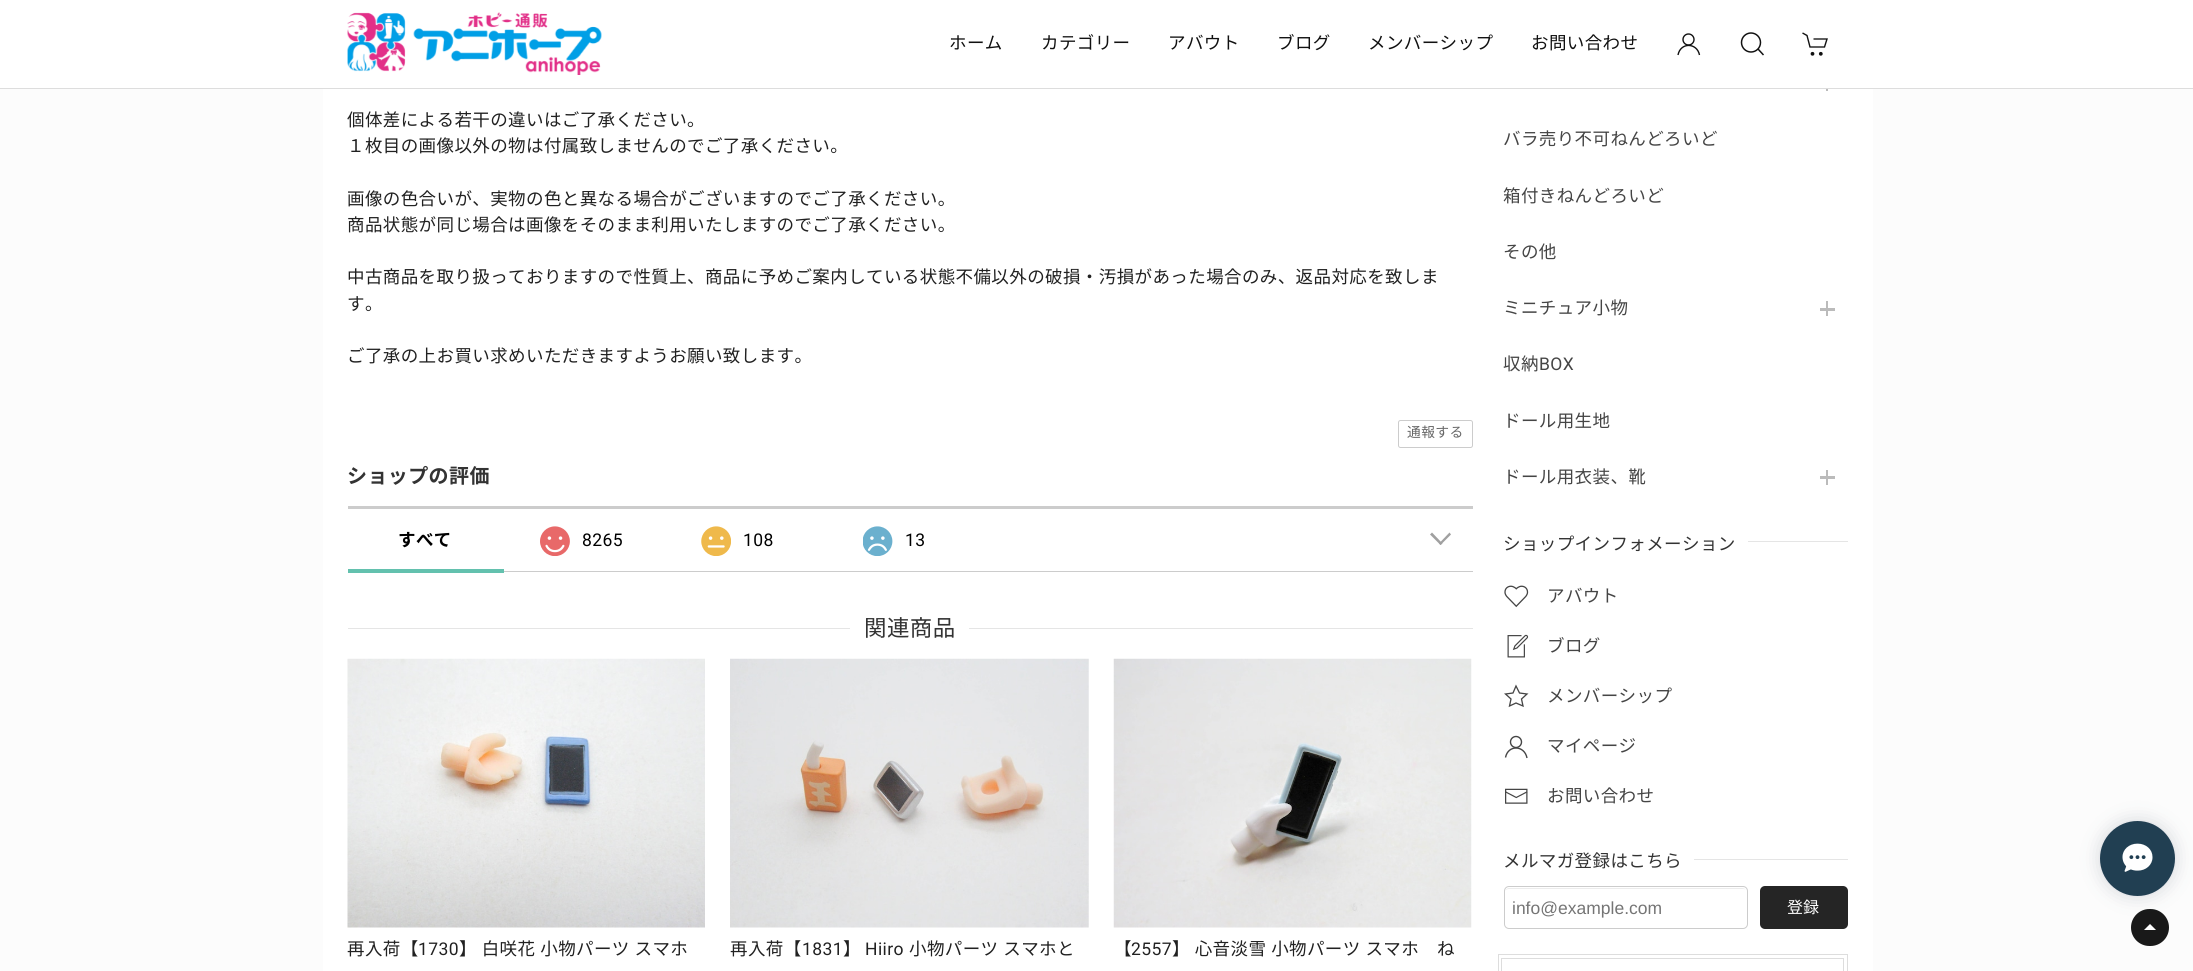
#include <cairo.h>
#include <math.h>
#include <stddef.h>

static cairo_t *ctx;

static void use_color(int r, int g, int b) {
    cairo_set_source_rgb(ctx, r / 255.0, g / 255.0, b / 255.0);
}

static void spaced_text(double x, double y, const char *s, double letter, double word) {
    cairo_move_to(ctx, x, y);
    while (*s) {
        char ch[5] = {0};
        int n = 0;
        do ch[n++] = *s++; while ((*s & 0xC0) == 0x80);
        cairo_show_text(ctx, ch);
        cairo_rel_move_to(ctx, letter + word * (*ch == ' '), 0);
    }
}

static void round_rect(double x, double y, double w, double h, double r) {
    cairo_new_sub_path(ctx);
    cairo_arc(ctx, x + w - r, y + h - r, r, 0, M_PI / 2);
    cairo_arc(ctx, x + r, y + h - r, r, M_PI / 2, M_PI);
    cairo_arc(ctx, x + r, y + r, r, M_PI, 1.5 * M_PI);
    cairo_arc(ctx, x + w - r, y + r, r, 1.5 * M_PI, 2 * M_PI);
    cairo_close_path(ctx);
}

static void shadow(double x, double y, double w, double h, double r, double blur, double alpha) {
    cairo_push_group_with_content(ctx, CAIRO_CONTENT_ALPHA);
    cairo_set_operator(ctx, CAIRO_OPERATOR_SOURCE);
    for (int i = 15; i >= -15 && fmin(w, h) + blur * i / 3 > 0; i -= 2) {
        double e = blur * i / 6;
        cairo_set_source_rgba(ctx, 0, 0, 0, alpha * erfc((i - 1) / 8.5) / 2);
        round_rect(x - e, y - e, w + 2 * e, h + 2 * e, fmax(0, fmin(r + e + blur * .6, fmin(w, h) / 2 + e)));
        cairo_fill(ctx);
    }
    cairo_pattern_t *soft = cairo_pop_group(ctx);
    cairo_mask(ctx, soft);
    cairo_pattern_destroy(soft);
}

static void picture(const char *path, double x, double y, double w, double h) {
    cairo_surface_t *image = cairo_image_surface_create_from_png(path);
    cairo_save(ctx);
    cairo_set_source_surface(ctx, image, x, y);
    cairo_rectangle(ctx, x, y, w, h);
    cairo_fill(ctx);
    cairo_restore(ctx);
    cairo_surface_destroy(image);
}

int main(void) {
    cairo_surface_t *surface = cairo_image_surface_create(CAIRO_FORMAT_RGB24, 2193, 971);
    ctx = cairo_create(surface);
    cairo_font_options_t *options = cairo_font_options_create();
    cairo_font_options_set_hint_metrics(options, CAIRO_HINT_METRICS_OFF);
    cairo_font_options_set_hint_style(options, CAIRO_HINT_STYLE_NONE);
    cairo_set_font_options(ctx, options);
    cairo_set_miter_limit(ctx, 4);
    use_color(252, 252, 252);
    cairo_paint(ctx);
    use_color(255, 255, 255);
    cairo_rectangle(ctx, 0, 0, 2193, 88);
    cairo_fill(ctx);
    use_color(221, 221, 221);
    cairo_rectangle(ctx, 0, 88, 2193, 1);
    cairo_fill(ctx);
    picture("img1.png", 347, 12, 255, 63);
    cairo_select_font_face(ctx, "Noto Sans JP", CAIRO_FONT_SLANT_NORMAL, CAIRO_FONT_WEIGHT_NORMAL);
    cairo_set_font_size(ctx, 17.5);
    use_color(17, 17, 17);
    spaced_text(949, 49, "ホーム", 0.4, 0);
    spaced_text(1041, 49, "カテゴリー", 0.4, 0);
    spaced_text(1168, 49, "アバウト", 0.4, 0);
    spaced_text(1277, 49, "ブログ", 0.4, 0);
    spaced_text(1368, 49, "メンバーシップ", 0.4, 0);
    spaced_text(1531, 49, "お問い合わせ", 0.4, 0);
    cairo_new_path(ctx);
    cairo_arc(ctx, 1688.5, 39.5, 5.5, 0, 2 * M_PI);
    cairo_set_line_width(ctx, 1.4);
    cairo_stroke(ctx);
    cairo_new_path(ctx);
    cairo_move_to(ctx, 1678, 55);
    cairo_curve_to(ctx, 1680.5, 42, 1697, 42.5, 1699.5, 55);
    cairo_stroke(ctx);
    cairo_arc(ctx, 1751, 42.5, 9.5, 0, 2 * M_PI);
    cairo_set_line_width(ctx, 1.5);
    cairo_stroke(ctx);
    cairo_new_path(ctx);
    cairo_move_to(ctx, 1758, 49);
    cairo_line_to(ctx, 1763.5, 55);
    cairo_close_path(ctx);
    cairo_stroke(ctx);
    cairo_new_path(ctx);
    cairo_move_to(ctx, 1802.5, 33);
    cairo_line_to(ctx, 1807, 35.5);
    cairo_line_to(ctx, 1810, 47);
    cairo_line_to(ctx, 1824.5, 47);
    cairo_line_to(ctx, 1827, 39);
    cairo_line_to(ctx, 1813.5, 39);
    cairo_set_line_width(ctx, 1.4);
    cairo_stroke(ctx);
    cairo_arc(ctx, 1812.5, 53.8, 1.9, 0, 2 * M_PI);
    cairo_fill(ctx);
    cairo_arc(ctx, 1820.8, 53.8, 1.9, 0, 2 * M_PI);
    cairo_fill(ctx);
    use_color(255, 255, 255);
    cairo_rectangle(ctx, 323, 89, 1550, 882);
    cairo_fill(ctx);
    use_color(33, 33, 33);
    spaced_text(347, 126, "個体差による若干の違いはご了承ください。", 0.4, 0);
    spaced_text(347, 152, "１枚目の画像以外の物は付属致しませんのでご了承ください。", 0.4, 0);
    spaced_text(347, 205, "画像の色合いが、実物の色と異なる場合がございますのでご了承ください。", 0.4, 0);
    spaced_text(347, 231, "商品状態が同じ場合は画像をそのまま利用いたしますのでご了承ください。", 0.4, 0);
    spaced_text(347, 283, "中古商品を取り扱っておりますので性質上、商品に予めご案内している状態不備以外の破損・汚損があった場合のみ、返品対応を致しま", 0.4, 0);
    spaced_text(347, 310, "す。", 0.4, 0);
    spaced_text(347, 362, "ご了承の上お買い求めいただきますようお願い致します。", 0.4, 0);
    round_rect(1398.5, 420.5, 74, 27, 2);
    use_color(204, 204, 204);
    cairo_set_line_width(ctx, 1);
    cairo_stroke(ctx);
    cairo_set_font_size(ctx, 13.75);
    use_color(102, 102, 102);
    spaced_text(1407, 437, "通報する", 0.4, 0);
    cairo_select_font_face(ctx, "Noto Sans JP", CAIRO_FONT_SLANT_NORMAL, CAIRO_FONT_WEIGHT_BOLD);
    cairo_set_font_size(ctx, 20);
    use_color(51, 51, 51);
    spaced_text(347, 483, "ショップの評価", 0.4, 0);
    use_color(204, 204, 204);
    cairo_rectangle(ctx, 348, 506, 1125, 3);
    cairo_fill(ctx);
    cairo_rectangle(ctx, 504, 571, 969, 1);
    cairo_fill(ctx);
    cairo_set_font_size(ctx, 17.5);
    use_color(0, 0, 0);
    spaced_text(398, 546, "すべて", 0.4, 0);
    picture("img2.png", 540, 526, 30, 30);
    cairo_select_font_face(ctx, "Roboto", CAIRO_FONT_SLANT_NORMAL, CAIRO_FONT_WEIGHT_NORMAL);
    spaced_text(582, 546, "8265", 0.4, 0);
    picture("img3.png", 701, 526, 30, 30);
    spaced_text(743, 546, "108", 0.4, 0);
    picture("img4.png", 863, 526, 30, 30);
    spaced_text(905, 546, "13", 0.4, 0);
    use_color(99, 193, 174);
    cairo_rectangle(ctx, 348, 569, 156, 4);
    cairo_fill(ctx);
    use_color(160, 160, 160);
    cairo_new_path(ctx);
    cairo_move_to(ctx, 1449.5, 532.5);
    cairo_line_to(ctx, 1451, 534.5);
    cairo_line_to(ctx, 1440.5, 545);
    cairo_line_to(ctx, 1439, 543.5);
    cairo_close_path(ctx);
    cairo_fill(ctx);
    cairo_new_path(ctx);
    cairo_move_to(ctx, 1432, 532.5);
    cairo_line_to(ctx, 1442.5, 543.5);
    cairo_line_to(ctx, 1440.5, 545);
    cairo_line_to(ctx, 1430, 534.5);
    cairo_close_path(ctx);
    cairo_fill(ctx);
    use_color(229, 229, 229);
    cairo_rectangle(ctx, 348, 628, 502, 1);
    cairo_fill(ctx);
    cairo_select_font_face(ctx, "Noto Sans JP", CAIRO_FONT_SLANT_NORMAL, CAIRO_FONT_WEIGHT_NORMAL);
    cairo_set_font_size(ctx, 22.5);
    use_color(51, 51, 51);
    spaced_text(864, 636, "関連商品", 0.4, 0);
    use_color(229, 229, 229);
    cairo_rectangle(ctx, 969, 628, 504, 1);
    cairo_fill(ctx);
    picture("img5.png", 347, 658, 358, 270);
    cairo_set_font_size(ctx, 17.5);
    use_color(33, 33, 33);
    spaced_text(347, 955, "再入荷【", 0.4, 0);
    cairo_select_font_face(ctx, "Roboto", CAIRO_FONT_SLANT_NORMAL, CAIRO_FONT_WEIGHT_NORMAL);
    spaced_text(418, 955, "1730", 0.4, 0);
    cairo_select_font_face(ctx, "Noto Sans JP", CAIRO_FONT_SLANT_NORMAL, CAIRO_FONT_WEIGHT_NORMAL);
    spaced_text(459, 955, "】 白咲花 小物パーツ スマホ", 0.4, 0.5);
    picture("img6.png", 730, 658, 359, 270);
    spaced_text(730, 955, "再入荷【", 0.4, 0);
    cairo_select_font_face(ctx, "Roboto", CAIRO_FONT_SLANT_NORMAL, CAIRO_FONT_WEIGHT_NORMAL);
    spaced_text(802, 955, "1831", 0.4, 0);
    cairo_select_font_face(ctx, "Noto Sans JP", CAIRO_FONT_SLANT_NORMAL, CAIRO_FONT_WEIGHT_NORMAL);
    spaced_text(843, 955, "】", 0.4, 0);
    cairo_select_font_face(ctx, "Roboto", CAIRO_FONT_SLANT_NORMAL, CAIRO_FONT_WEIGHT_NORMAL);
    spaced_text(865, 955, "Hiiro", 0.4, 0);
    cairo_select_font_face(ctx, "Noto Sans JP", CAIRO_FONT_SLANT_NORMAL, CAIRO_FONT_WEIGHT_NORMAL);
    spaced_text(909, 955, "小物パーツ スマホと", 0.4, 0.5);
    picture("img7.png", 1113, 658, 359, 270);
    spaced_text(1114, 955, "【", 0.4, 0);
    cairo_select_font_face(ctx, "Roboto", CAIRO_FONT_SLANT_NORMAL, CAIRO_FONT_WEIGHT_NORMAL);
    spaced_text(1131, 955, "2557", 0.4, 0);
    cairo_select_font_face(ctx, "Noto Sans JP", CAIRO_FONT_SLANT_NORMAL, CAIRO_FONT_WEIGHT_NORMAL);
    spaced_text(1172, 955, "】 心音淡雪 小物パーツ スマホ　ね", 0.4, 0.5);
    use_color(187, 187, 187);
    cairo_rectangle(ctx, 1826, 89, 2, 2);
    cairo_fill(ctx);
    use_color(69, 69, 69);
    spaced_text(1503, 145, "バラ売り不可ねんどろいど", 0.4, 0);
    spaced_text(1503, 202, "箱付きねんどろいど", 0.4, 0);
    spaced_text(1503, 258, "その他", 0.4, 0);
    spaced_text(1503, 314, "ミニチュア小物", 0.4, 0);
    use_color(187, 187, 187);
    cairo_rectangle(ctx, 1820, 308, 15, 3);
    cairo_fill(ctx);
    cairo_rectangle(ctx, 1826, 301, 2, 15);
    cairo_fill(ctx);
    use_color(69, 69, 69);
    spaced_text(1503, 370, "収納", 0.4, 0);
    cairo_select_font_face(ctx, "Roboto", CAIRO_FONT_SLANT_NORMAL, CAIRO_FONT_WEIGHT_NORMAL);
    spaced_text(1539, 370, "BOX", 0.4, 0);
    cairo_select_font_face(ctx, "Noto Sans JP", CAIRO_FONT_SLANT_NORMAL, CAIRO_FONT_WEIGHT_NORMAL);
    spaced_text(1503, 427, "ドール用生地", 0.4, 0);
    spaced_text(1503, 483, "ドール用衣装、靴", 0.4, 0);
    use_color(187, 187, 187);
    cairo_rectangle(ctx, 1820, 476, 15, 3);
    cairo_fill(ctx);
    cairo_rectangle(ctx, 1826, 470, 2, 15);
    cairo_fill(ctx);
    use_color(51, 51, 51);
    spaced_text(1503, 550, "ショップインフォメーション", 0.4, 0);
    use_color(229, 229, 229);
    cairo_rectangle(ctx, 1748, 541, 100, 1);
    cairo_fill(ctx);
    picture("img8.png", 1504, 585, 25, 23);
    use_color(69, 69, 69);
    spaced_text(1547, 602, "アバウト", 0.4, 0);
    picture("img9.png", 1507, 634, 22, 24);
    spaced_text(1547, 652, "ブログ", 0.4, 0);
    cairo_new_path(ctx);
    cairo_move_to(ctx, 1516, 686);
    cairo_line_to(ctx, 1519.5, 693);
    cairo_line_to(ctx, 1527, 694);
    cairo_line_to(ctx, 1521.5, 699);
    cairo_line_to(ctx, 1523, 706);
    cairo_line_to(ctx, 1516, 703);
    cairo_line_to(ctx, 1509.5, 706);
    cairo_line_to(ctx, 1511, 699);
    cairo_line_to(ctx, 1505.5, 694);
    cairo_line_to(ctx, 1513, 693);
    cairo_close_path(ctx);
    cairo_set_line_width(ctx, 1.3);
    cairo_stroke(ctx);
    spaced_text(1547, 702, "メンバーシップ", 0.4, 0);
    cairo_new_path(ctx);
    cairo_arc(ctx, 1516, 742, 5.5, 0, 2 * M_PI);
    cairo_set_line_width(ctx, 1.4);
    cairo_stroke(ctx);
    cairo_new_path(ctx);
    cairo_move_to(ctx, 1505.5, 757.5);
    cairo_curve_to(ctx, 1508, 744.5, 1524.5, 745, 1527, 758);
    cairo_stroke(ctx);
    spaced_text(1547, 752, "マイページ", 0.4, 0);
    picture("img10.png", 1505, 788, 23, 16);
    spaced_text(1547, 802, "お問い合わせ", 0.4, 0);
    use_color(51, 51, 51);
    spaced_text(1503, 867, "メルマガ登録はこちら", 0.4, 0);
    use_color(229, 229, 229);
    cairo_rectangle(ctx, 1694, 859, 154, 1);
    cairo_fill(ctx);
    use_color(236, 236, 236);
    cairo_new_path(ctx);
    cairo_move_to(ctx, 1509, 889);
    cairo_line_to(ctx, 1742, 889);
    cairo_curve_to(ctx, 1744, 889, 1745, 889, 1746, 890);
    cairo_curve_to(ctx, 1745, 889, 1744, 888, 1742, 888);
    cairo_line_to(ctx, 1509, 888);
    cairo_curve_to(ctx, 1507, 888, 1505, 890, 1505, 892);
    cairo_curve_to(ctx, 1505, 890, 1507, 889, 1509, 889);
    cairo_close_path(ctx);
    cairo_fill(ctx);
    round_rect(1504.5, 886.5, 243, 42, 4.5);
    use_color(204, 204, 204);
    cairo_set_line_width(ctx, 1);
    cairo_stroke(ctx);
    cairo_select_font_face(ctx, "Liberation Sans", CAIRO_FONT_SLANT_NORMAL, CAIRO_FONT_WEIGHT_NORMAL);
    use_color(117, 117, 117);
    cairo_move_to(ctx, 1512, 914);
    cairo_show_text(ctx, "info@example.com");
    use_color(37, 37, 37);
    round_rect(1760, 886, 88, 43, 5);
    cairo_fill(ctx);
    cairo_select_font_face(ctx, "Noto Sans JP", CAIRO_FONT_SLANT_NORMAL, CAIRO_FONT_WEIGHT_NORMAL);
    cairo_set_font_size(ctx, 16);
    use_color(255, 255, 255);
    cairo_move_to(ctx, 1787, 913);
    cairo_show_text(ctx, "登録");
    cairo_rectangle(ctx, 1498.5, 954.5, 349, 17);
    use_color(221, 221, 221);
    cairo_stroke(ctx);
    cairo_rectangle(ctx, 1501.5, 958.5, 342, 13);
    cairo_stroke(ctx);
    use_color(25, 25, 25);
    round_rect(2131, 909, 38, 37, 18.5);
    cairo_fill(ctx);
    use_color(255, 255, 255);
    cairo_new_path(ctx);
    cairo_move_to(ctx, 2144, 930);
    cairo_line_to(ctx, 2150, 924);
    cairo_line_to(ctx, 2156, 930);
    cairo_close_path(ctx);
    cairo_fill(ctx);
    use_color(51, 66, 88);
    shadow(2100, 821, 75, 75, 37.5, 9.5, 0.2);
    use_color(33, 63, 82);
    cairo_arc(ctx, 2137.5, 858.5, 37.5, 0, 2 * M_PI);
    cairo_fill(ctx);
    picture("img11.png", 2122, 843, 31, 29);
    cairo_surface_write_to_png(surface, "result.png");
    cairo_font_options_destroy(options);
    cairo_destroy(ctx);
    cairo_surface_destroy(surface);
    return 0;
}
